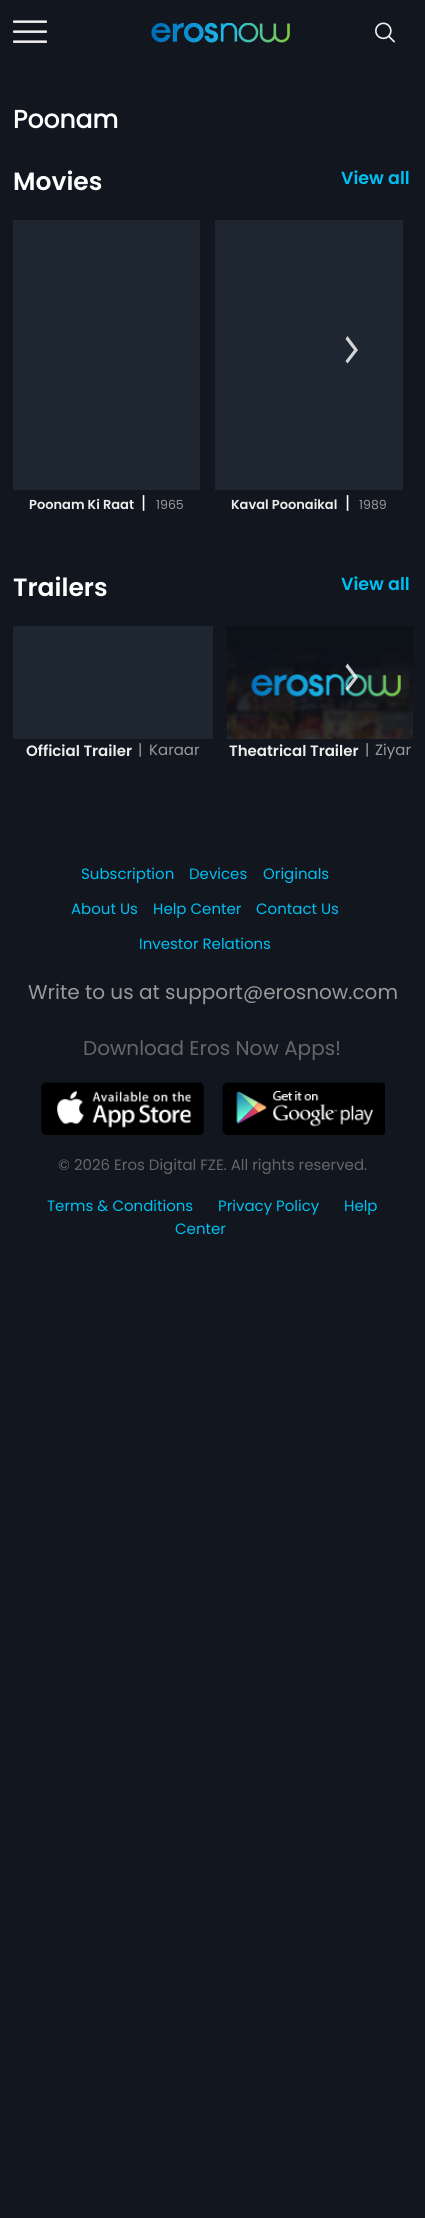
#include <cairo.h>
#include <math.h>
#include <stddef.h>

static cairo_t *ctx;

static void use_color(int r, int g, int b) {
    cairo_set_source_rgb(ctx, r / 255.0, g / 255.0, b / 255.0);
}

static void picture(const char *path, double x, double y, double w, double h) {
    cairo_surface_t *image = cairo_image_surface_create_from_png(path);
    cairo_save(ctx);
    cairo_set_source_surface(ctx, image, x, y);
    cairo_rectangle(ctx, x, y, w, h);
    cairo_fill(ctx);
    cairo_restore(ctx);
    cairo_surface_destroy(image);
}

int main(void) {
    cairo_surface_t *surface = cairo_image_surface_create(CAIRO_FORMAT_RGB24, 425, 2218);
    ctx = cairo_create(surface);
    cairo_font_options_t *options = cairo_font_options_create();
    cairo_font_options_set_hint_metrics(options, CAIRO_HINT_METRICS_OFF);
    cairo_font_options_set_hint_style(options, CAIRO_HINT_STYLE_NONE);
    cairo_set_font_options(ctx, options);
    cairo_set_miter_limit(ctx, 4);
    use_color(17, 22, 31);
    cairo_paint(ctx);
    picture("img1.png", 13, 20, 34, 23);
    picture("img2.png", 151, 23, 139, 20);
    picture("img3.png", 375, 22, 20, 21);
    cairo_select_font_face(ctx, "Poppins", CAIRO_FONT_SLANT_NORMAL, CAIRO_FONT_WEIGHT_BOLD);
    cairo_set_font_size(ctx, 25);
    use_color(255, 255, 255);
    cairo_move_to(ctx, 13, 128);
    cairo_show_text(ctx, "Poonam");
    cairo_select_font_face(ctx, "Poppins SemiBold", CAIRO_FONT_SLANT_NORMAL, CAIRO_FONT_WEIGHT_NORMAL);
    cairo_move_to(ctx, 13, 190);
    cairo_show_text(ctx, "Movies");
    cairo_set_font_size(ctx, 17.5);
    use_color(0, 191, 242);
    cairo_move_to(ctx, 341, 184);
    cairo_show_text(ctx, "View all");
    use_color(30, 38, 49);
    cairo_rectangle(ctx, 215, 220, 188, 270);
    cairo_fill(ctx);
    use_color(210, 212, 214);
    cairo_new_path(ctx);
    cairo_move_to(ctx, 358, 350);
    cairo_line_to(ctx, 347.5, 336);
    cairo_line_to(ctx, 345.5, 339);
    cairo_line_to(ctx, 354, 350);
    cairo_line_to(ctx, 345.5, 361);
    cairo_line_to(ctx, 347.5, 363.5);
    cairo_close_path(ctx);
    cairo_fill(ctx);
    use_color(30, 38, 49);
    cairo_rectangle(ctx, 13, 220, 187, 270);
    cairo_fill(ctx);
    cairo_set_font_size(ctx, 13);
    use_color(238, 238, 238);
    cairo_move_to(ctx, 29, 509);
    cairo_show_text(ctx, "Poonam Ki Raat");
    cairo_select_font_face(ctx, "Poppins", CAIRO_FONT_SLANT_NORMAL, CAIRO_FONT_WEIGHT_NORMAL);
    cairo_set_font_size(ctx, 17.5);
    use_color(255, 255, 255);
    cairo_move_to(ctx, 141, 509);
    cairo_show_text(ctx, "|");
    cairo_set_font_size(ctx, 12.5);
    use_color(153, 153, 153);
    cairo_move_to(ctx, 156, 509);
    cairo_show_text(ctx, "1965");
    cairo_select_font_face(ctx, "Poppins SemiBold", CAIRO_FONT_SLANT_NORMAL, CAIRO_FONT_WEIGHT_NORMAL);
    cairo_set_font_size(ctx, 13);
    use_color(238, 238, 238);
    cairo_move_to(ctx, 231, 509);
    cairo_show_text(ctx, "Kaval Poonaikal");
    cairo_select_font_face(ctx, "Poppins", CAIRO_FONT_SLANT_NORMAL, CAIRO_FONT_WEIGHT_NORMAL);
    cairo_set_font_size(ctx, 17.5);
    use_color(255, 255, 255);
    cairo_move_to(ctx, 345, 509);
    cairo_show_text(ctx, "|");
    cairo_set_font_size(ctx, 12.5);
    use_color(153, 153, 153);
    cairo_move_to(ctx, 359, 509);
    cairo_show_text(ctx, "1989");
    cairo_select_font_face(ctx, "Poppins SemiBold", CAIRO_FONT_SLANT_NORMAL, CAIRO_FONT_WEIGHT_NORMAL);
    cairo_set_font_size(ctx, 25);
    use_color(255, 255, 255);
    cairo_move_to(ctx, 13, 596);
    cairo_show_text(ctx, "Trailers");
    cairo_set_font_size(ctx, 17.5);
    use_color(0, 191, 242);
    cairo_move_to(ctx, 341, 590);
    cairo_show_text(ctx, "View all");
    picture("img4.png", 227, 626, 186, 113);
    cairo_set_source_rgba(ctx, 1, 1, 1, 0.8);
    cairo_new_path(ctx);
    cairo_move_to(ctx, 358, 677.5);
    cairo_line_to(ctx, 347.5, 663.5);
    cairo_line_to(ctx, 345.5, 666.5);
    cairo_line_to(ctx, 354, 677.5);
    cairo_line_to(ctx, 345.5, 688.5);
    cairo_line_to(ctx, 347.5, 691);
    cairo_close_path(ctx);
    cairo_fill(ctx);
    use_color(30, 38, 49);
    cairo_rectangle(ctx, 13, 626, 200, 113);
    cairo_fill(ctx);
    cairo_set_font_size(ctx, 15);
    use_color(238, 238, 238);
    cairo_move_to(ctx, 26, 756);
    cairo_show_text(ctx, "Official Trailer");
    cairo_select_font_face(ctx, "Poppins", CAIRO_FONT_SLANT_NORMAL, CAIRO_FONT_WEIGHT_NORMAL);
    use_color(153, 153, 153);
    cairo_move_to(ctx, 138, 755);
    cairo_show_text(ctx, "|");
    cairo_move_to(ctx, 149, 755);
    cairo_show_text(ctx, "Karaar");
    cairo_select_font_face(ctx, "Poppins SemiBold", CAIRO_FONT_SLANT_NORMAL, CAIRO_FONT_WEIGHT_NORMAL);
    use_color(238, 238, 238);
    cairo_move_to(ctx, 229, 756);
    cairo_show_text(ctx, "Theatrical Trailer");
    cairo_select_font_face(ctx, "Poppins", CAIRO_FONT_SLANT_NORMAL, CAIRO_FONT_WEIGHT_NORMAL);
    use_color(153, 153, 153);
    cairo_move_to(ctx, 365, 755);
    cairo_show_text(ctx, "|");
    cairo_move_to(ctx, 375, 755);
    cairo_show_text(ctx, "Ziyar");
    use_color(0, 191, 242);
    cairo_move_to(ctx, 81, 879);
    cairo_show_text(ctx, "Subscription");
    cairo_move_to(ctx, 189, 879);
    cairo_show_text(ctx, "Devices");
    cairo_move_to(ctx, 263, 879);
    cairo_show_text(ctx, "Originals");
    cairo_move_to(ctx, 71, 914);
    cairo_show_text(ctx, "About Us");
    cairo_move_to(ctx, 153, 914);
    cairo_show_text(ctx, "Help Center");
    cairo_move_to(ctx, 256, 914);
    cairo_show_text(ctx, "Contact Us");
    cairo_move_to(ctx, 139, 949);
    cairo_show_text(ctx, "Investor Relations");
    cairo_set_font_size(ctx, 20);
    use_color(153, 153, 153);
    cairo_move_to(ctx, 28, 999);
    cairo_show_text(ctx, "Write to us at support@erosnow.com");
    use_color(102, 102, 102);
    cairo_move_to(ctx, 83, 1055);
    cairo_show_text(ctx, "Download Eros Now Apps!");
    picture("img5.png", 41, 1082, 163, 53);
    picture("img6.png", 222, 1082, 163, 53);
    cairo_set_font_size(ctx, 15);
    cairo_move_to(ctx, 58, 1170);
    cairo_show_text(ctx, "© 2026 Eros Digital FZE. All rights reserved.");
    use_color(0, 191, 242);
    cairo_move_to(ctx, 47, 1211);
    cairo_show_text(ctx, "Terms & Conditions");
    cairo_move_to(ctx, 218, 1211);
    cairo_show_text(ctx, "Privacy Policy");
    cairo_move_to(ctx, 344, 1211);
    cairo_show_text(ctx, "Help");
    cairo_move_to(ctx, 175, 1234);
    cairo_show_text(ctx, "Center");
    cairo_surface_write_to_png(surface, "result.png");
    cairo_font_options_destroy(options);
    cairo_destroy(ctx);
    cairo_surface_destroy(surface);
    return 0;
}
